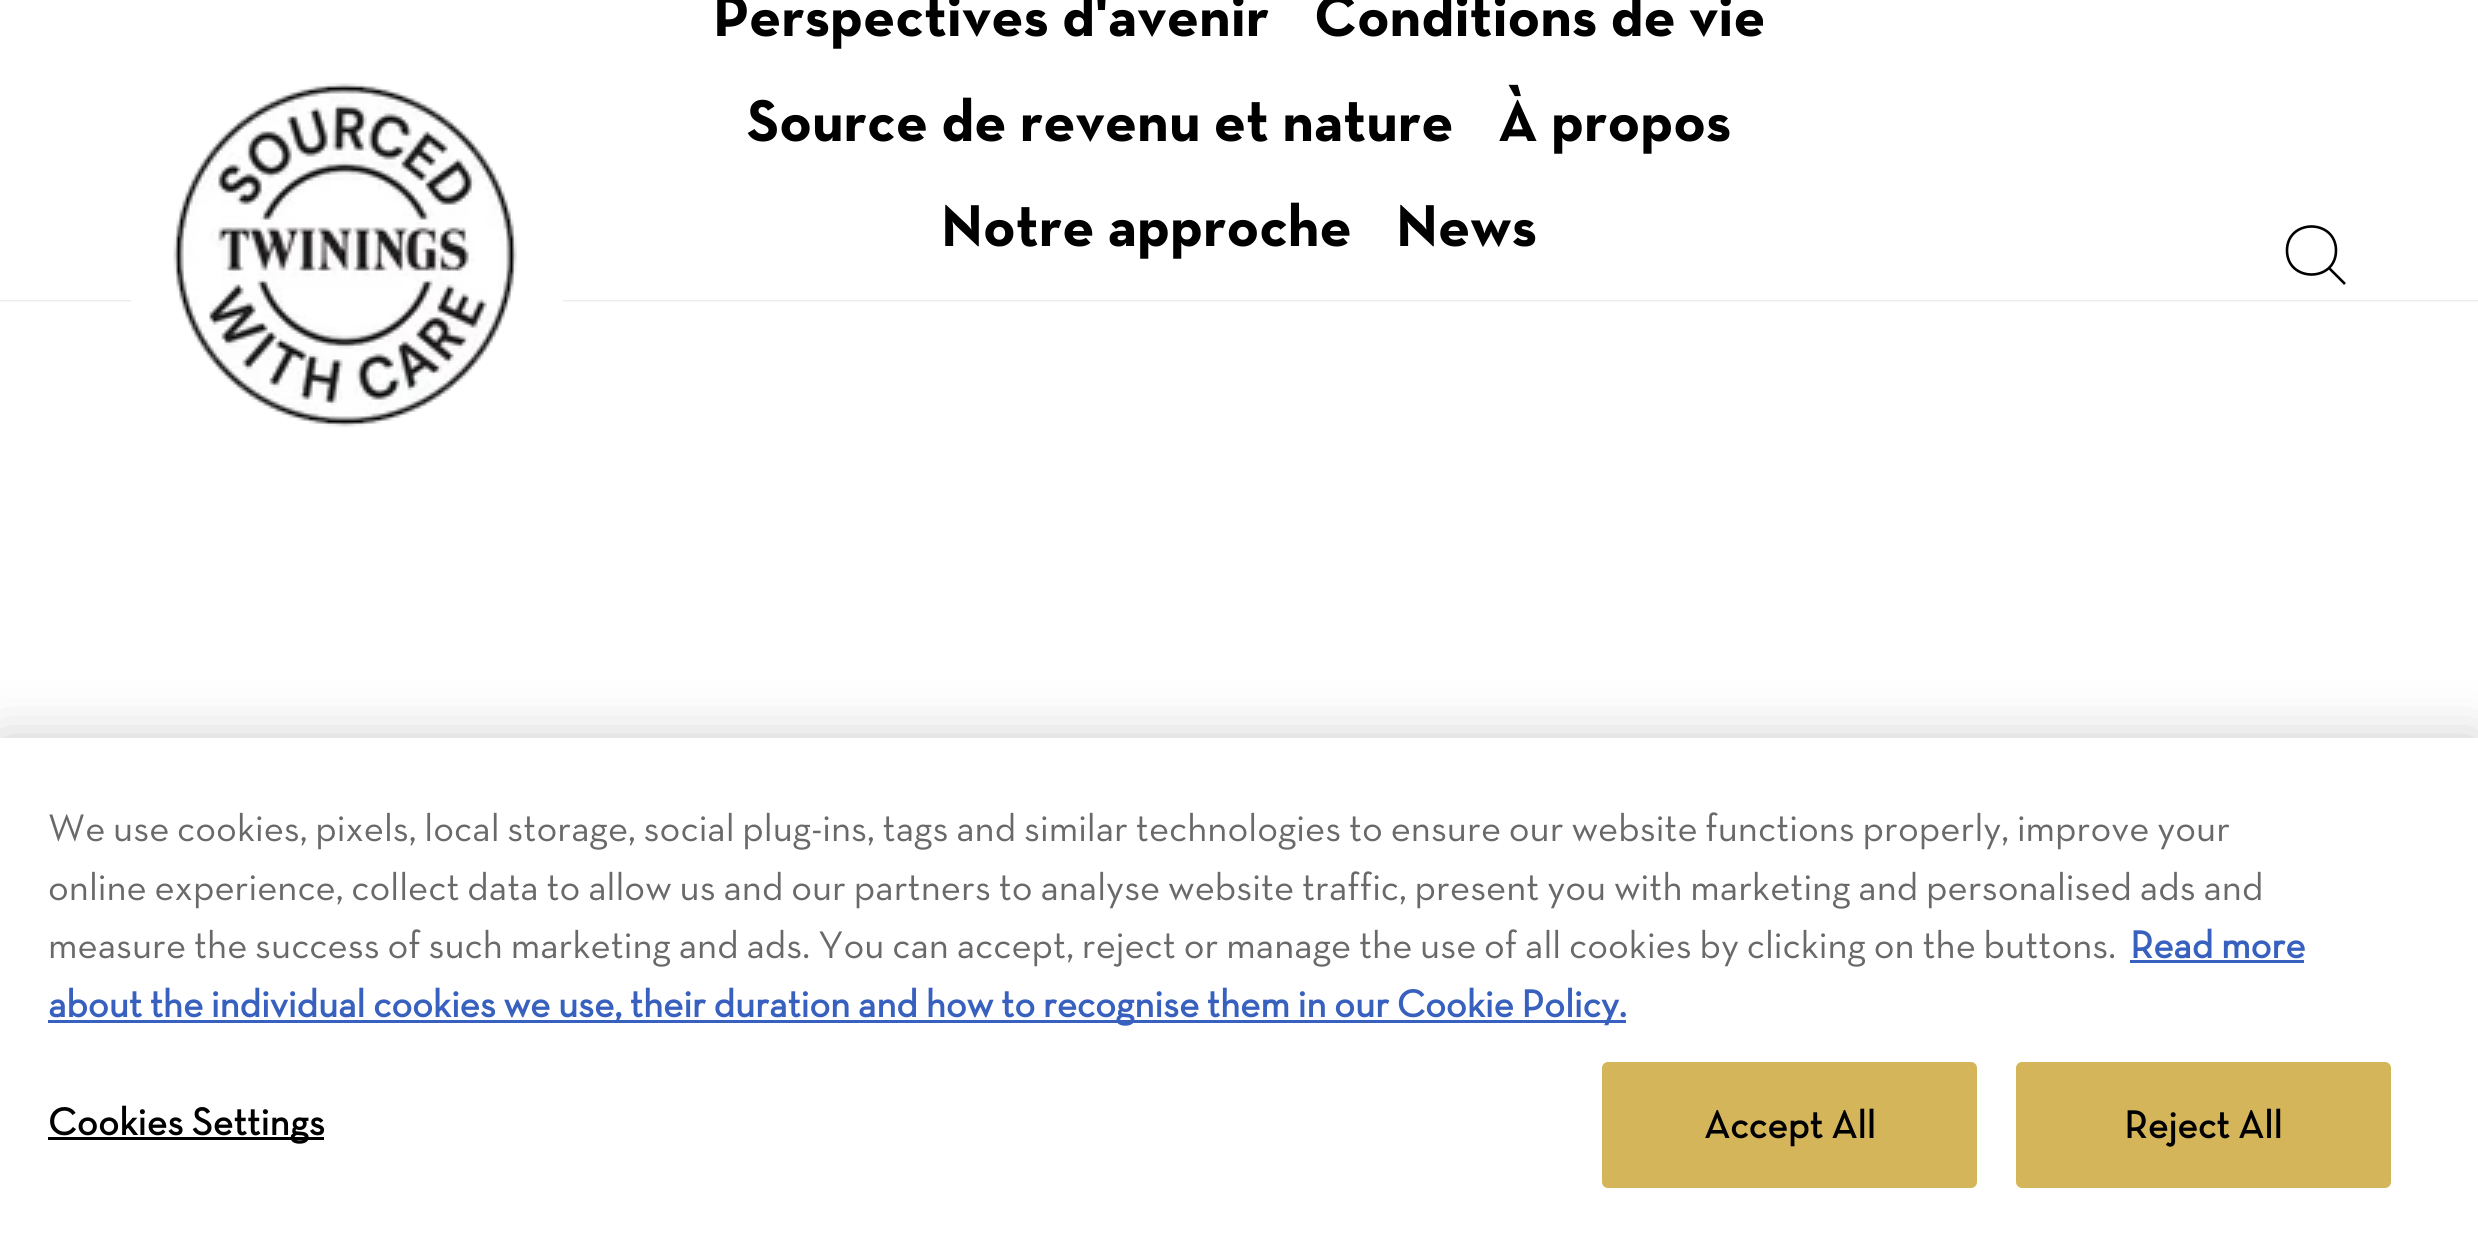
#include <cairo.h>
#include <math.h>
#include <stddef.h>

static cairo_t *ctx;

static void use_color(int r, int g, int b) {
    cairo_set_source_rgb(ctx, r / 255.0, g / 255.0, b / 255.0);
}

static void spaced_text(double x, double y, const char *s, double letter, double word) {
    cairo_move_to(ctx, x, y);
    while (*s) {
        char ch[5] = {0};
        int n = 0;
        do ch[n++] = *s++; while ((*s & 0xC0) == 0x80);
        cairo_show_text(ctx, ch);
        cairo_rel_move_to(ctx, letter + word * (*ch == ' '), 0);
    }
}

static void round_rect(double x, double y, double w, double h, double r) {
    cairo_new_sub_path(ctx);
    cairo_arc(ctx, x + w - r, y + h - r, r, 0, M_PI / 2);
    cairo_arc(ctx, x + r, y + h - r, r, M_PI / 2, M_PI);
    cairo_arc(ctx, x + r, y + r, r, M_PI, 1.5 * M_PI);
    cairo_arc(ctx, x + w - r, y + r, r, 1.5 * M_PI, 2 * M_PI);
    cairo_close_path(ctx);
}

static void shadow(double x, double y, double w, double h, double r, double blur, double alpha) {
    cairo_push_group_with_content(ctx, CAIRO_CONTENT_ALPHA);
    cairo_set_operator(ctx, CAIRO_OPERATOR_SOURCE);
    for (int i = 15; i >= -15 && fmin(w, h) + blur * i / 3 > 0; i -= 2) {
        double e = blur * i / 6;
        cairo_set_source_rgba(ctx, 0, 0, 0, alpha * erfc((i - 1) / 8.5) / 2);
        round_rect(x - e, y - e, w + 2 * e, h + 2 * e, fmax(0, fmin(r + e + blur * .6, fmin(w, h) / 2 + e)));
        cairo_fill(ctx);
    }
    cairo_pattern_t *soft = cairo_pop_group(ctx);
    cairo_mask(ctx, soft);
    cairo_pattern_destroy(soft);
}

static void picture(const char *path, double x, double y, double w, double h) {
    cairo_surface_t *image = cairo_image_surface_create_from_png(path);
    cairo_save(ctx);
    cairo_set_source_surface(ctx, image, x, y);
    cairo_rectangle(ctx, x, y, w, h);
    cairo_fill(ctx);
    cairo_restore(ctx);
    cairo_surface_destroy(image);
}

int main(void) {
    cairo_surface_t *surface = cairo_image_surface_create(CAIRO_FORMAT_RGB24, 2478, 1246);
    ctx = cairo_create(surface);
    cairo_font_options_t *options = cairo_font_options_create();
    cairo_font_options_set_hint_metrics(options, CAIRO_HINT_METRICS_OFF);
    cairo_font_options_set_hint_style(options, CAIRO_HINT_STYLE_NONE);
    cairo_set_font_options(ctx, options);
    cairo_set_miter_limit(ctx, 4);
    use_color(255, 255, 255);
    cairo_paint(ctx);
    cairo_save(ctx);
    cairo_rectangle(ctx, 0, 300, 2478, 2);
    cairo_clip(ctx);
    use_color(0, 0, 0);
    shadow(0, 0, 2478, 300, 0, 1.5, 0.2);
    cairo_restore(ctx);
    picture("img1.png", 131, 300, 433, 2);
    picture("img2.png", 173, 83, 344, 344);
    cairo_select_font_face(ctx, "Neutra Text", CAIRO_FONT_SLANT_NORMAL, CAIRO_FONT_WEIGHT_BOLD);
    cairo_set_font_size(ctx, 60);
    use_color(0, 0, 0);
    cairo_move_to(ctx, 713, 36);
    cairo_show_text(ctx, "Perspectives d'avenir");
    cairo_move_to(ctx, 1314, 36);
    cairo_show_text(ctx, "Conditions de vie");
    cairo_move_to(ctx, 747, 141);
    cairo_show_text(ctx, "Source de revenu et nature");
    cairo_move_to(ctx, 1498, 141);
    cairo_show_text(ctx, "À propos");
    cairo_move_to(ctx, 941, 246);
    cairo_show_text(ctx, "Notre approche");
    cairo_move_to(ctx, 1396, 246);
    cairo_show_text(ctx, "News");
    cairo_new_path(ctx);
    cairo_move_to(ctx, 2336, 250.5);
    cairo_curve_to(ctx, 2336, 282.5, 2287, 282.5, 2287, 250.5);
    cairo_curve_to(ctx, 2287, 218.5, 2336, 218.5, 2336, 250.5);
    cairo_close_path(ctx);
    cairo_move_to(ctx, 2345, 284);
    cairo_line_to(ctx, 2329, 268);
    cairo_set_line_width(ctx, 2.6);
    cairo_stroke(ctx);
    use_color(0, 0, 0);
    shadow(0, 738, 2478, 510, 0, 27, 0.2);
    use_color(255, 255, 255);
    cairo_rectangle(ctx, 0, 738, 2478, 508);
    cairo_fill(ctx);
    cairo_select_font_face(ctx, "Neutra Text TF", CAIRO_FONT_SLANT_NORMAL, CAIRO_FONT_WEIGHT_NORMAL);
    cairo_set_font_size(ctx, 39.02);
    use_color(105, 105, 105);
    cairo_move_to(ctx, 48, 841);
    cairo_show_text(ctx, "We use cookies, pixels, local storage, social plug-ins, tags and similar technologies to ensure our website functions properly, improve your");
    cairo_move_to(ctx, 48, 900);
    cairo_show_text(ctx, "online experience, collect data to allow us and our partners to analyse website traffic, present you with marketing and personalised ads and");
    cairo_move_to(ctx, 48, 958);
    cairo_show_text(ctx, "measure the success of such marketing and ads. You can accept, reject or manage the use of all cookies by clicking on the buttons.");
    cairo_select_font_face(ctx, "Neutra Text TF", CAIRO_FONT_SLANT_NORMAL, CAIRO_FONT_WEIGHT_BOLD);
    use_color(56, 96, 190);
    cairo_move_to(ctx, 2130, 958);
    cairo_show_text(ctx, "Read more");
    cairo_rectangle(ctx, 2130, 960, 174, 3);
    cairo_fill(ctx);
    cairo_rectangle(ctx, 48, 1020, 1578, 3);
    cairo_fill(ctx);
    cairo_move_to(ctx, 48, 1017);
    cairo_show_text(ctx, "about the individual cookies we use, their duration and how to recognise them in our Cookie Policy.");
    use_color(0, 0, 0);
    cairo_rectangle(ctx, 48, 1137, 276, 3);
    cairo_fill(ctx);
    spaced_text(48, 1135, "Cookies Settings", 0.4, 0);
    use_color(213, 181, 90);
    round_rect(1603.5, 1063.5, 372, 123, 4.5);
    cairo_fill_preserve(ctx);
    cairo_set_line_width(ctx, 3);
    cairo_stroke(ctx);
    use_color(0, 0, 0);
    spaced_text(1704, 1138, "Accept All", 0.4, 0);
    use_color(213, 181, 90);
    round_rect(2017.5, 1063.5, 372, 123, 4.5);
    cairo_fill_preserve(ctx);
    cairo_stroke(ctx);
    use_color(0, 0, 0);
    spaced_text(2124, 1138, "Reject All", 0.4, 0);
    cairo_surface_write_to_png(surface, "result.png");
    cairo_font_options_destroy(options);
    cairo_destroy(ctx);
    cairo_surface_destroy(surface);
    return 0;
}
